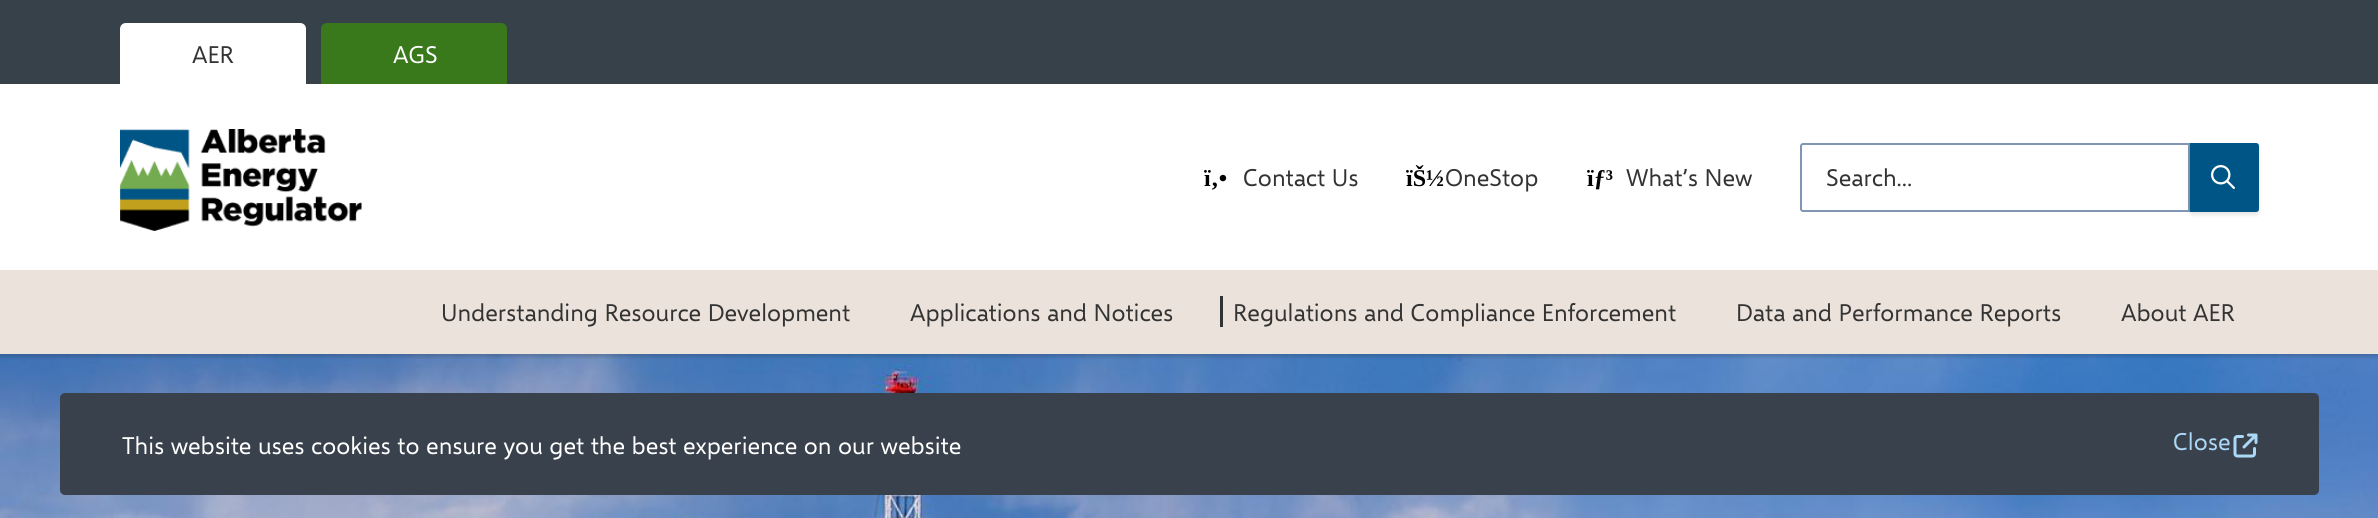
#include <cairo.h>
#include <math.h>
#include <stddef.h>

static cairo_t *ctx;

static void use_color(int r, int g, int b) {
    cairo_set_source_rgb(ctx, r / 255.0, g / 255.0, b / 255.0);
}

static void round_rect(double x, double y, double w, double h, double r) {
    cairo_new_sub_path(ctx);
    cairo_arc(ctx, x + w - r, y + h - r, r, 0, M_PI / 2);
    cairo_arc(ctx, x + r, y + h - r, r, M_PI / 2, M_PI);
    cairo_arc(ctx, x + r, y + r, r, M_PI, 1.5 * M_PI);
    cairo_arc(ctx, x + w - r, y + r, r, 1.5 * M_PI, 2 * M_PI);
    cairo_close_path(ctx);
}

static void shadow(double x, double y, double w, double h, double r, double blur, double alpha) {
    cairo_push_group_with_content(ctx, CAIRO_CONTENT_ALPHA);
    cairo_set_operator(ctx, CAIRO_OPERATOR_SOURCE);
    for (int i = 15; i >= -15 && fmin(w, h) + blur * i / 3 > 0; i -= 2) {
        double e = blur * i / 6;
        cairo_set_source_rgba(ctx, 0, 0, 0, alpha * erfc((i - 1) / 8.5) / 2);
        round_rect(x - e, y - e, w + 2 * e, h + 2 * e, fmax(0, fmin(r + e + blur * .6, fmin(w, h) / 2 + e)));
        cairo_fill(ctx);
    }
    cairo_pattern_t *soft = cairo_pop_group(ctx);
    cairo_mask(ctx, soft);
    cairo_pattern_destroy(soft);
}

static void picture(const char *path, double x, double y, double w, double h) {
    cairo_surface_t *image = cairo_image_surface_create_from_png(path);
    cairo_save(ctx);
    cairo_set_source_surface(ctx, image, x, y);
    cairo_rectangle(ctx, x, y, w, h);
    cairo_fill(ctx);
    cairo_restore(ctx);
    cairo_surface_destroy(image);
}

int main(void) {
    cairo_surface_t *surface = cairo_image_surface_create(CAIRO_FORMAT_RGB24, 2378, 518);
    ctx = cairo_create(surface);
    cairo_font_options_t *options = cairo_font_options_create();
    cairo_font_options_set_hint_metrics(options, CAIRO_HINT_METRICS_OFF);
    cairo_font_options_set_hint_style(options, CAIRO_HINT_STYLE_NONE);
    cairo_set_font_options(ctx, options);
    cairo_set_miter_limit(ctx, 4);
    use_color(255, 255, 255);
    cairo_paint(ctx);
    use_color(55, 65, 74);
    cairo_rectangle(ctx, 0, 0, 2378, 84);
    cairo_fill(ctx);
    use_color(255, 255, 255);
    cairo_new_path(ctx);
    cairo_move_to(ctx, 126, 23);
    cairo_line_to(ctx, 300, 23);
    cairo_curve_to(ctx, 303.5, 23, 306, 25.5, 306, 29);
    cairo_line_to(ctx, 306, 84);
    cairo_line_to(ctx, 120, 84);
    cairo_line_to(ctx, 120, 29);
    cairo_curve_to(ctx, 120, 25.5, 122.5, 23, 126, 23);
    cairo_close_path(ctx);
    cairo_fill(ctx);
    cairo_select_font_face(ctx, "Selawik", CAIRO_FONT_SLANT_NORMAL, CAIRO_FONT_WEIGHT_NORMAL);
    cairo_set_font_size(ctx, 24);
    use_color(51, 51, 51);
    cairo_move_to(ctx, 192, 63);
    cairo_show_text(ctx, "AER");
    use_color(57, 121, 27);
    cairo_new_path(ctx);
    cairo_move_to(ctx, 327, 23);
    cairo_line_to(ctx, 501, 23);
    cairo_curve_to(ctx, 504.5, 23, 507, 25.5, 507, 29);
    cairo_line_to(ctx, 507, 84);
    cairo_line_to(ctx, 321, 84);
    cairo_line_to(ctx, 321, 29);
    cairo_curve_to(ctx, 321, 25.5, 323.5, 23, 327, 23);
    cairo_close_path(ctx);
    cairo_fill(ctx);
    use_color(255, 255, 255);
    cairo_move_to(ctx, 393, 63);
    cairo_show_text(ctx, "AGS");
    picture("img1.png", 120, 129, 242, 102);
    cairo_select_font_face(ctx, "Liberation Serif", CAIRO_FONT_SLANT_NORMAL, CAIRO_FONT_WEIGHT_BOLD);
    use_color(0, 0, 0);
    cairo_move_to(ctx, 1204, 186);
    cairo_show_text(ctx, "ï‚•");
    cairo_select_font_face(ctx, "Selawik", CAIRO_FONT_SLANT_NORMAL, CAIRO_FONT_WEIGHT_NORMAL);
    use_color(51, 51, 51);
    cairo_move_to(ctx, 1243, 186);
    cairo_show_text(ctx, "Contact Us");
    cairo_select_font_face(ctx, "Liberation Serif", CAIRO_FONT_SLANT_NORMAL, CAIRO_FONT_WEIGHT_BOLD);
    use_color(0, 0, 0);
    cairo_move_to(ctx, 1406, 186);
    cairo_show_text(ctx, "ïŠ½");
    cairo_select_font_face(ctx, "Selawik", CAIRO_FONT_SLANT_NORMAL, CAIRO_FONT_WEIGHT_NORMAL);
    use_color(51, 51, 51);
    cairo_move_to(ctx, 1445, 186);
    cairo_show_text(ctx, "OneStop");
    cairo_select_font_face(ctx, "Liberation Serif", CAIRO_FONT_SLANT_NORMAL, CAIRO_FONT_WEIGHT_BOLD);
    use_color(0, 0, 0);
    cairo_move_to(ctx, 1587, 186);
    cairo_show_text(ctx, "ïƒ³");
    cairo_select_font_face(ctx, "Selawik", CAIRO_FONT_SLANT_NORMAL, CAIRO_FONT_WEIGHT_NORMAL);
    use_color(51, 51, 51);
    cairo_move_to(ctx, 1626, 186);
    cairo_show_text(ctx, "What’s New");
    cairo_new_path(ctx);
    cairo_move_to(ctx, 1803, 144);
    cairo_line_to(ctx, 2189, 144);
    cairo_line_to(ctx, 2189, 211);
    cairo_line_to(ctx, 1803, 211);
    cairo_curve_to(ctx, 1802, 211, 1801, 210, 1801, 209);
    cairo_line_to(ctx, 1801, 146);
    cairo_curve_to(ctx, 1801, 145, 1802, 144, 1803, 144);
    cairo_close_path(ctx);
    use_color(128, 150, 179);
    cairo_stroke(ctx);
    use_color(51, 51, 51);
    cairo_move_to(ctx, 1826, 186);
    cairo_show_text(ctx, "Search...");
    use_color(0, 0, 0);
    shadow(2190, 146, 69, 69, 3, 2, 0.1);
    use_color(0, 85, 135);
    cairo_new_path(ctx);
    cairo_move_to(ctx, 2191.5, 144.5);
    cairo_line_to(ctx, 2256, 144.5);
    cairo_curve_to(ctx, 2257, 144.5, 2257.5, 145, 2257.5, 146);
    cairo_line_to(ctx, 2257.5, 209);
    cairo_curve_to(ctx, 2257.5, 210, 2257, 210.5, 2256, 210.5);
    cairo_line_to(ctx, 2191.5, 210.5);
    cairo_close_path(ctx);
    cairo_fill_preserve(ctx);
    cairo_set_line_width(ctx, 3);
    cairo_stroke(ctx);
    picture("img2.png", 2211, 165, 24, 24);
    use_color(235, 227, 219);
    cairo_rectangle(ctx, 0, 270, 2378, 84);
    cairo_fill(ctx);
    picture("img3.png", 0, 354, 2378, 164);
    cairo_save(ctx);
    cairo_rectangle(ctx, 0, 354, 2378, 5);
    cairo_clip(ctx);
    use_color(0, 0, 0);
    shadow(0, 273, 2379, 84, 0, 2, 0.15);
    cairo_restore(ctx);
    use_color(51, 51, 51);
    cairo_move_to(ctx, 441, 321);
    cairo_show_text(ctx, "Understanding Resource Development");
    cairo_move_to(ctx, 910, 321);
    cairo_show_text(ctx, "Applications and Notices");
    cairo_rectangle(ctx, 1220, 296, 3, 31);
    cairo_fill(ctx);
    cairo_move_to(ctx, 1233, 321);
    cairo_show_text(ctx, "Regulations and Compliance Enforcement");
    cairo_move_to(ctx, 1736, 321);
    cairo_show_text(ctx, "Data and Performance Reports");
    cairo_move_to(ctx, 2121, 321);
    cairo_show_text(ctx, "About AER");
    use_color(57, 65, 76);
    round_rect(61, 394, 2257, 100, 4);
    cairo_fill_preserve(ctx);
    cairo_set_line_width(ctx, 2);
    cairo_stroke(ctx);
    use_color(255, 255, 255);
    cairo_move_to(ctx, 122, 454);
    cairo_show_text(ctx, "This website uses cookies to ensure you get the best experience on our website");
    use_color(172, 216, 247);
    cairo_move_to(ctx, 2173, 450);
    cairo_show_text(ctx, "Close");
    picture("img4.png", 2233, 433, 25, 25);
    cairo_surface_write_to_png(surface, "result.png");
    cairo_font_options_destroy(options);
    cairo_destroy(ctx);
    cairo_surface_destroy(surface);
    return 0;
}
